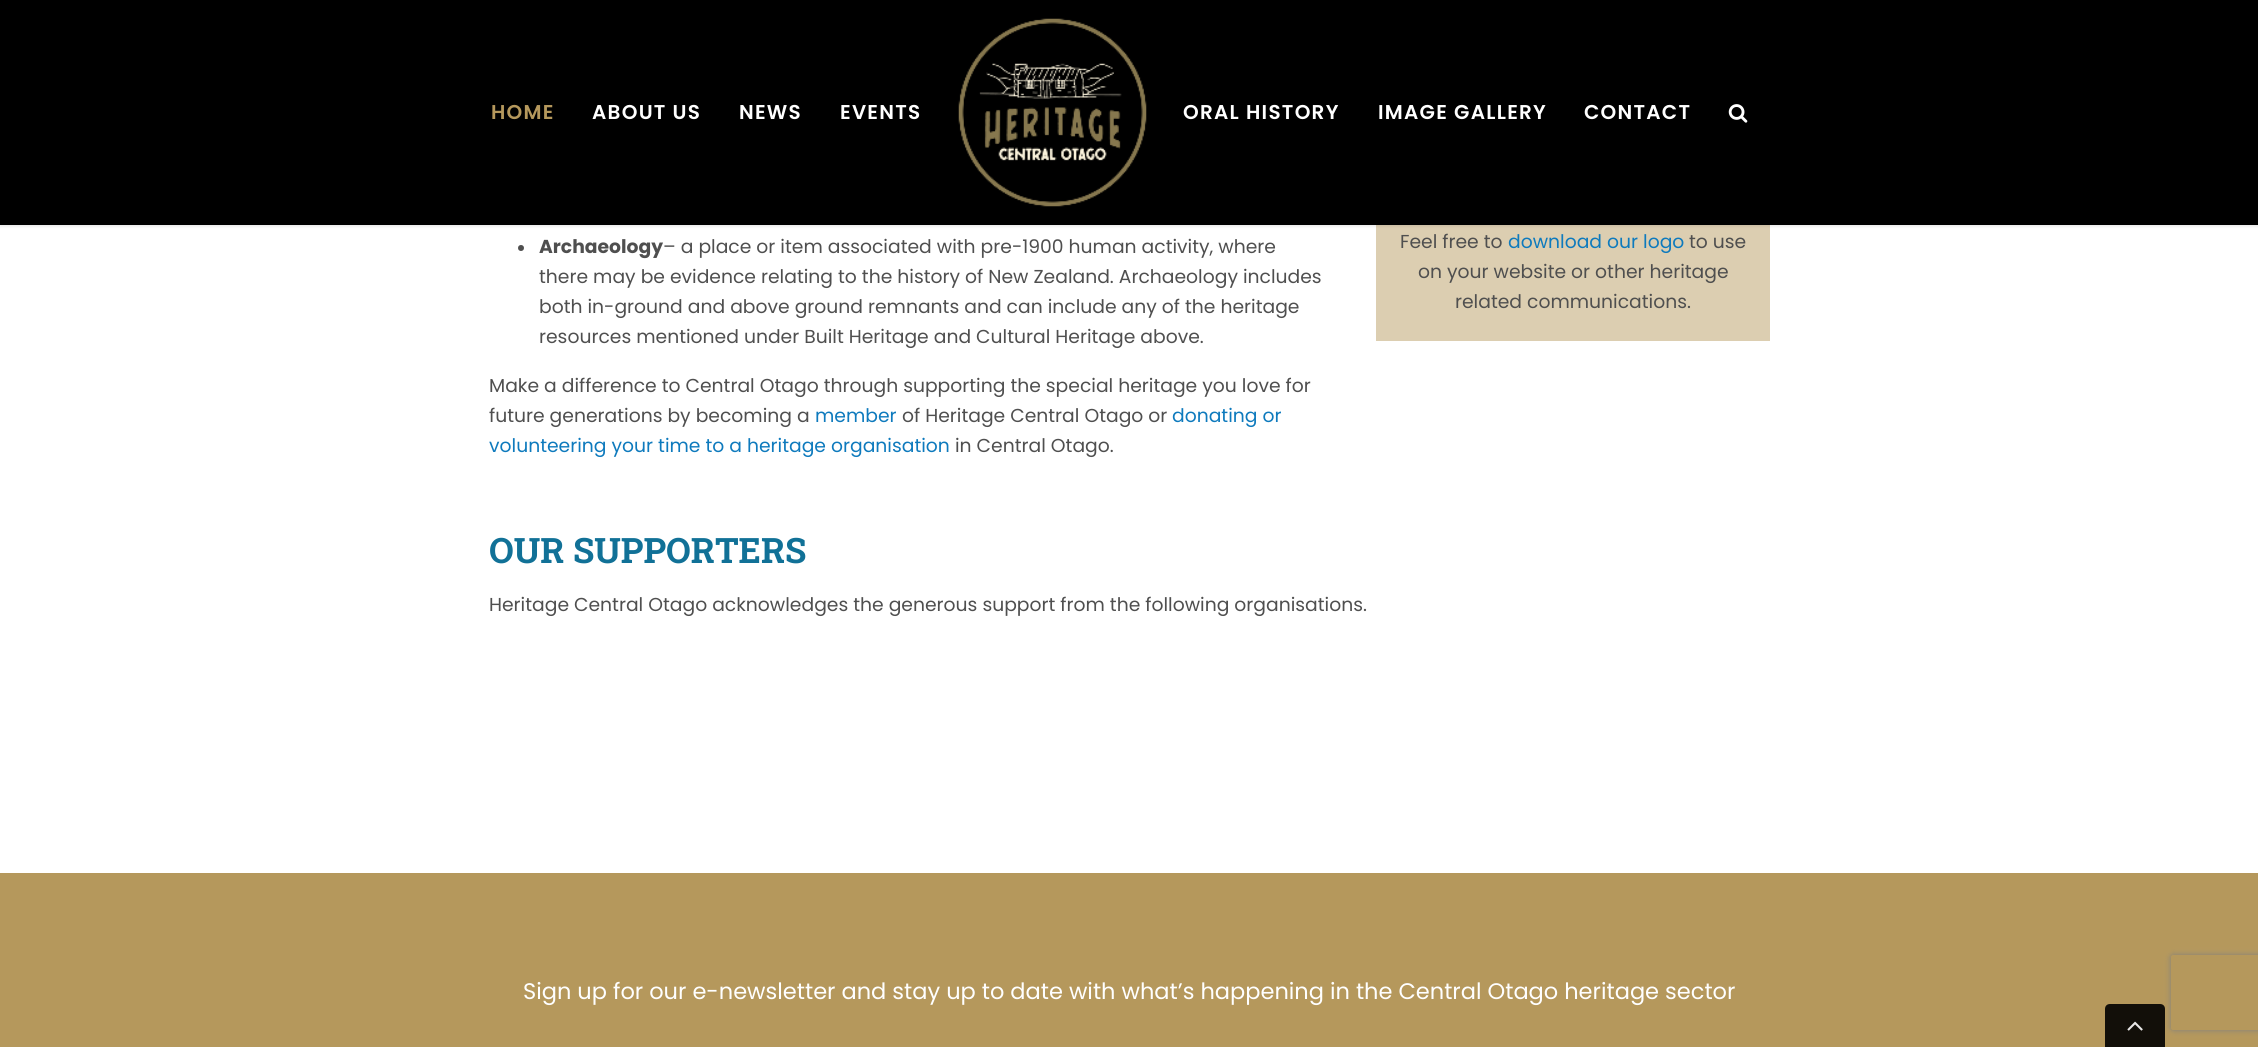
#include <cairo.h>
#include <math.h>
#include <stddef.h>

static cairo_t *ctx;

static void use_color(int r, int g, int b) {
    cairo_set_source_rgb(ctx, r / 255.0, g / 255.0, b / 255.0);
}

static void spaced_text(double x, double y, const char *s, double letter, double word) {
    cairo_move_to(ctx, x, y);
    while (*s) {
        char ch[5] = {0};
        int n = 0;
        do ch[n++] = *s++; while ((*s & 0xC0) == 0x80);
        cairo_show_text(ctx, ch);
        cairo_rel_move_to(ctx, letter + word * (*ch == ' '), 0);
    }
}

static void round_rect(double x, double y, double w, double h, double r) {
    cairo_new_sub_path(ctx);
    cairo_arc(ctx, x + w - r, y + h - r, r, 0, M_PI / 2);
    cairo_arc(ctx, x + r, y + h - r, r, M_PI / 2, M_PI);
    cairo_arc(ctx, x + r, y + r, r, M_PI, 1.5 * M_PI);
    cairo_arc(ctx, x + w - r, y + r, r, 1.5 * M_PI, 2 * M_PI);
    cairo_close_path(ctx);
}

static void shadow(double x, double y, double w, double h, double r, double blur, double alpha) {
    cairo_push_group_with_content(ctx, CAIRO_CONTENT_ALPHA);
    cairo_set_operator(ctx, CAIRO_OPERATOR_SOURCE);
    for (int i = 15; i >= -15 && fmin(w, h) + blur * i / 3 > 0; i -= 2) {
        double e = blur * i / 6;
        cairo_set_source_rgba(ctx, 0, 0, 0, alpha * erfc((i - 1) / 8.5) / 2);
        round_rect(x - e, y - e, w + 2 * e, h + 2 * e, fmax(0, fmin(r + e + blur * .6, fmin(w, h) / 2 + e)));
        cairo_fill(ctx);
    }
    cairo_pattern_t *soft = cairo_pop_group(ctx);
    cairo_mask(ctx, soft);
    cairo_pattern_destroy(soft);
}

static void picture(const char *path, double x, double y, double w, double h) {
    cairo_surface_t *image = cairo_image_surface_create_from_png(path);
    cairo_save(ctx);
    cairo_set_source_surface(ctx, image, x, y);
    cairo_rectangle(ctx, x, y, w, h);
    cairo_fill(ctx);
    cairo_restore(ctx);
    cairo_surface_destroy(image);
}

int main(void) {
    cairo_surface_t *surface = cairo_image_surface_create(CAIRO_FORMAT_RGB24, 2258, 1047);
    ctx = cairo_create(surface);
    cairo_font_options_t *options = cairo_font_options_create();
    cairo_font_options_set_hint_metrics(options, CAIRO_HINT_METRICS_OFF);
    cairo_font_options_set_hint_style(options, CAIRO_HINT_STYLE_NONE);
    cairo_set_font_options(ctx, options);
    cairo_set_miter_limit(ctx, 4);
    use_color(255, 255, 255);
    cairo_paint(ctx);
    use_color(220, 206, 177);
    cairo_rectangle(ctx, 1376, 225, 394, 116);
    cairo_fill(ctx);
    use_color(0, 0, 0);
    shadow(0, 1, 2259, 225, 0, 2, 0.12);
    use_color(0, 0, 0);
    cairo_rectangle(ctx, 0, 0, 2258, 225);
    cairo_fill(ctx);
    cairo_select_font_face(ctx, "Poppins SemiBold", CAIRO_FONT_SLANT_NORMAL, CAIRO_FONT_WEIGHT_NORMAL);
    cairo_set_font_size(ctx, 20);
    use_color(181, 152, 92);
    spaced_text(491, 119, "HOME", 1.25, 0);
    use_color(255, 255, 255);
    spaced_text(592, 119, "ABOUT US", 1.25, 0);
    spaced_text(739, 119, "NEWS", 1.25, 0);
    spaced_text(840, 119, "EVENTS", 1.25, 0);
    picture("img1.png", 958, 18, 189, 189);
    spaced_text(1183, 119, "ORAL HISTORY", 1.25, 0);
    spaced_text(1378, 119, "IMAGE GALLERY", 1.25, 0);
    spaced_text(1584, 119, "CONTACT", 1.25, 0);
    picture("img2.png", 1728, 104, 20, 19);
    use_color(79, 79, 79);
    cairo_arc(ctx, 521, 248, 3, 0, 2 * M_PI);
    cairo_fill(ctx);
    cairo_select_font_face(ctx, "Poppins", CAIRO_FONT_SLANT_NORMAL, CAIRO_FONT_WEIGHT_BOLD);
    cairo_set_font_size(ctx, 18.75);
    cairo_move_to(ctx, 539, 253);
    cairo_show_text(ctx, "Archaeology");
    cairo_select_font_face(ctx, "Poppins", CAIRO_FONT_SLANT_NORMAL, CAIRO_FONT_WEIGHT_NORMAL);
    cairo_move_to(ctx, 663, 253);
    cairo_show_text(ctx, "– a place or item associated with pre-1900 human activity, where");
    cairo_move_to(ctx, 539, 283);
    cairo_show_text(ctx, "there may be evidence relating to the history of New Zealand. Archaeology includes");
    cairo_move_to(ctx, 539, 313);
    cairo_show_text(ctx, "both in-ground and above ground remnants and can include any of the heritage");
    cairo_move_to(ctx, 539, 343);
    cairo_show_text(ctx, "resources mentioned under Built Heritage and Cultural Heritage above.");
    cairo_move_to(ctx, 489, 392);
    cairo_show_text(ctx, "Make a difference to Central Otago through supporting the special heritage you love for");
    cairo_move_to(ctx, 489, 422);
    cairo_show_text(ctx, "future generations by becoming a");
    use_color(14, 122, 189);
    cairo_move_to(ctx, 815, 422);
    cairo_show_text(ctx, "member");
    use_color(79, 79, 79);
    cairo_move_to(ctx, 902, 422);
    cairo_show_text(ctx, "of Heritage Central Otago or");
    use_color(14, 122, 189);
    cairo_move_to(ctx, 1172, 422);
    cairo_show_text(ctx, "donating or");
    cairo_move_to(ctx, 489, 452);
    cairo_show_text(ctx, "volunteering your time to a heritage organisation");
    use_color(79, 79, 79);
    cairo_move_to(ctx, 955, 452);
    cairo_show_text(ctx, "in Central Otago.");
    cairo_move_to(ctx, 1400, 248);
    cairo_show_text(ctx, "Feel free to");
    use_color(14, 122, 189);
    cairo_move_to(ctx, 1508, 248);
    cairo_show_text(ctx, "download our logo");
    use_color(79, 79, 79);
    cairo_move_to(ctx, 1689, 248);
    cairo_show_text(ctx, "to use");
    cairo_move_to(ctx, 1418, 278);
    cairo_show_text(ctx, "on your website or other heritage");
    cairo_move_to(ctx, 1455, 308);
    cairo_show_text(ctx, "related communications.");
    cairo_select_font_face(ctx, "Roboto Slab", CAIRO_FONT_SLANT_NORMAL, CAIRO_FONT_WEIGHT_BOLD);
    cairo_set_font_size(ctx, 35);
    use_color(17, 113, 151);
    cairo_move_to(ctx, 489, 563);
    cairo_show_text(ctx, "OUR SUPPORTERS");
    cairo_select_font_face(ctx, "Poppins", CAIRO_FONT_SLANT_NORMAL, CAIRO_FONT_WEIGHT_NORMAL);
    cairo_set_font_size(ctx, 18.75);
    use_color(79, 79, 79);
    cairo_move_to(ctx, 489, 611);
    cairo_show_text(ctx, "Heritage Central Otago acknowledges the generous support from the following organisations.");
    use_color(181, 152, 92);
    cairo_rectangle(ctx, 0, 873, 2258, 174);
    cairo_fill(ctx);
    cairo_set_font_size(ctx, 22.5);
    use_color(255, 255, 255);
    cairo_move_to(ctx, 523, 999);
    cairo_show_text(ctx, "Sign up for our e-newsletter and stay up to date with what’s happening in the Central Otago heritage sector");
    cairo_save(ctx);
    cairo_set_fill_rule(ctx, CAIRO_FILL_RULE_EVEN_ODD);
    cairo_new_path(ctx);
    cairo_move_to(ctx, 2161, 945);
    cairo_line_to(ctx, 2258, 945);
    cairo_line_to(ctx, 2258, 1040);
    cairo_line_to(ctx, 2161, 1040);
    cairo_close_path(ctx);
    cairo_move_to(ctx, 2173.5, 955);
    cairo_line_to(ctx, 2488.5, 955);
    cairo_curve_to(ctx, 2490, 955, 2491, 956, 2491, 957.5);
    cairo_line_to(ctx, 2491, 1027.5);
    cairo_curve_to(ctx, 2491, 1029, 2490, 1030, 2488.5, 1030);
    cairo_line_to(ctx, 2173.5, 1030);
    cairo_curve_to(ctx, 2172, 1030, 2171, 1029, 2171, 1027.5);
    cairo_line_to(ctx, 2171, 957.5);
    cairo_curve_to(ctx, 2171, 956, 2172, 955, 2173.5, 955);
    cairo_close_path(ctx);
    cairo_clip(ctx);
    use_color(128, 128, 128);
    shadow(2171, 955, 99, 75, 2.5, 3, 1);
    cairo_restore(ctx);
    use_color(18, 15, 9);
    cairo_new_path(ctx);
    cairo_move_to(ctx, 2110, 1004);
    cairo_line_to(ctx, 2160, 1004);
    cairo_curve_to(ctx, 2163, 1004, 2165, 1006, 2165, 1009);
    cairo_line_to(ctx, 2165, 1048);
    cairo_line_to(ctx, 2105, 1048);
    cairo_line_to(ctx, 2105, 1009);
    cairo_curve_to(ctx, 2105, 1006, 2107, 1004, 2110, 1004);
    cairo_close_path(ctx);
    cairo_fill(ctx);
    picture("img3.png", 2127, 1021, 16, 10);
    cairo_surface_write_to_png(surface, "result.png");
    cairo_font_options_destroy(options);
    cairo_destroy(ctx);
    cairo_surface_destroy(surface);
    return 0;
}
